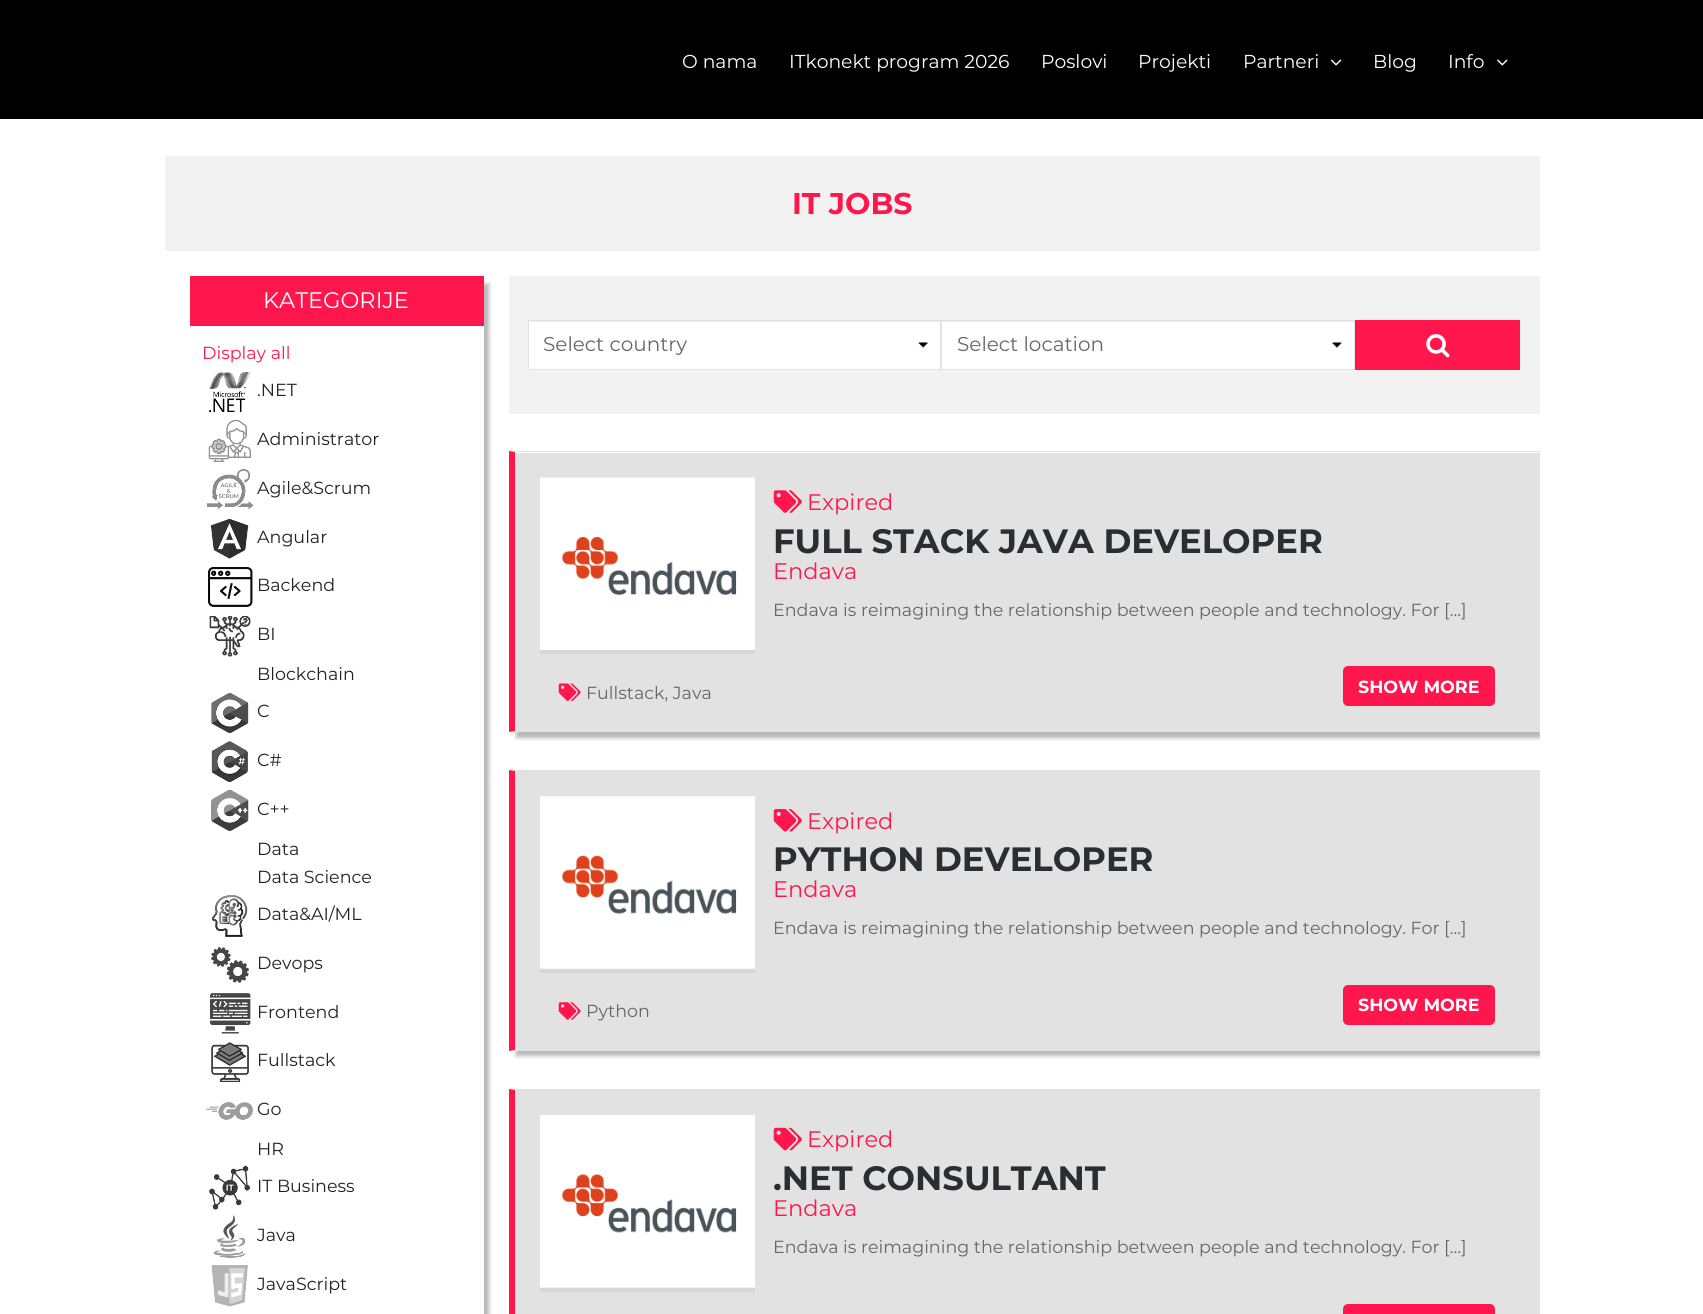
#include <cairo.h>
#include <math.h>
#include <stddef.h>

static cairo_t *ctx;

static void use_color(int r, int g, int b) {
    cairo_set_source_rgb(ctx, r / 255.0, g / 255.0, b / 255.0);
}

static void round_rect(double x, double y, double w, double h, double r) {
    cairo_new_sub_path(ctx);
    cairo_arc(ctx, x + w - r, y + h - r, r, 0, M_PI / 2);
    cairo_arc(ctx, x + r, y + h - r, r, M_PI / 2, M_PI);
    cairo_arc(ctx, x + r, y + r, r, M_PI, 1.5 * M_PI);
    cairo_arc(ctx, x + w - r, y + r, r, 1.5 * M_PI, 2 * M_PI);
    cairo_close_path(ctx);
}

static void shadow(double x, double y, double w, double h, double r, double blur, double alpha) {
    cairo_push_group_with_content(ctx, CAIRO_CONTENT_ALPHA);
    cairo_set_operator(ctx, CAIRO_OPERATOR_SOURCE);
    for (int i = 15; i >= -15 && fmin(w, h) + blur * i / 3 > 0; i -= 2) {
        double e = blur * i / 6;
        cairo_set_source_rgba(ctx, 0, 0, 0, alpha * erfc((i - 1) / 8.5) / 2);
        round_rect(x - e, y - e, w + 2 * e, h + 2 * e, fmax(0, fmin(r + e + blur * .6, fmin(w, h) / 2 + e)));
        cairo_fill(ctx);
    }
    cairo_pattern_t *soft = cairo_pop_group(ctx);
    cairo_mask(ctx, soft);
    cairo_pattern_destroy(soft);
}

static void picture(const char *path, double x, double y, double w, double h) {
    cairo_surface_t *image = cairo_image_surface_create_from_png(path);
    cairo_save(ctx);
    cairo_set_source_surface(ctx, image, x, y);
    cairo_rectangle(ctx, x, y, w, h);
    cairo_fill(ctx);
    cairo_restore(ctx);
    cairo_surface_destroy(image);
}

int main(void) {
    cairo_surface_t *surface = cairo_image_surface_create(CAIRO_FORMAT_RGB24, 1703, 1314);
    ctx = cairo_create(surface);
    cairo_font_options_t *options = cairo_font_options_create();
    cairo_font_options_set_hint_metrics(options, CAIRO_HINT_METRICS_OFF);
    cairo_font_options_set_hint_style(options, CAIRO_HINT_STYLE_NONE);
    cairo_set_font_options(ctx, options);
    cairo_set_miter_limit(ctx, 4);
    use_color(255, 255, 255);
    cairo_paint(ctx);
    use_color(0, 0, 0);
    cairo_rectangle(ctx, 0, 0, 1703, 119);
    cairo_fill(ctx);
    cairo_select_font_face(ctx, "Montserrat", CAIRO_FONT_SLANT_NORMAL, CAIRO_FONT_WEIGHT_NORMAL);
    cairo_set_font_size(ctx, 18.75);
    use_color(255, 255, 255);
    cairo_move_to(ctx, 682, 68);
    cairo_show_text(ctx, "O nama");
    cairo_move_to(ctx, 789, 68);
    cairo_show_text(ctx, "ITkonekt program 2026");
    cairo_move_to(ctx, 1041, 68);
    cairo_show_text(ctx, "Poslovi");
    cairo_move_to(ctx, 1138, 68);
    cairo_show_text(ctx, "Projekti");
    cairo_move_to(ctx, 1243, 68);
    cairo_show_text(ctx, "Partneri");
    picture("img1.png", 1330, 59, 12, 7);
    cairo_move_to(ctx, 1373, 68);
    cairo_show_text(ctx, "Blog");
    cairo_move_to(ctx, 1448, 68);
    cairo_show_text(ctx, "Info");
    picture("img2.png", 1497, 59, 11, 7);
    use_color(242, 242, 242);
    cairo_rectangle(ctx, 165, 156, 1375, 95);
    cairo_fill(ctx);
    cairo_select_font_face(ctx, "Montserrat", CAIRO_FONT_SLANT_NORMAL, CAIRO_FONT_WEIGHT_BOLD);
    cairo_set_font_size(ctx, 30);
    use_color(255, 22, 76);
    cairo_move_to(ctx, 792, 214);
    cairo_show_text(ctx, "IT JOBS");
    cairo_save(ctx);
    cairo_set_fill_rule(ctx, CAIRO_FILL_RULE_EVEN_ODD);
    cairo_new_path(ctx);
    cairo_move_to(ctx, 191, 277);
    cairo_line_to(ctx, 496, 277);
    cairo_line_to(ctx, 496, 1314);
    cairo_line_to(ctx, 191, 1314);
    cairo_close_path(ctx);
    cairo_move_to(ctx, 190, 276);
    cairo_line_to(ctx, 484, 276);
    cairo_line_to(ctx, 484, 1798);
    cairo_line_to(ctx, 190, 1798);
    cairo_close_path(ctx);
    cairo_clip(ctx);
    use_color(0, 0, 0);
    shadow(198, 284, 291, 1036, 0, 2, 0.28);
    cairo_restore(ctx);
    cairo_rectangle(ctx, 190, 276, 294, 50);
    cairo_fill(ctx);
    cairo_select_font_face(ctx, "Montserrat", CAIRO_FONT_SLANT_NORMAL, CAIRO_FONT_WEIGHT_NORMAL);
    cairo_set_font_size(ctx, 22.5);
    use_color(255, 255, 255);
    cairo_move_to(ctx, 263, 308);
    cairo_show_text(ctx, "KATEGORIJE");
    cairo_set_font_size(ctx, 17.5);
    use_color(255, 22, 76);
    cairo_move_to(ctx, 202, 359);
    cairo_show_text(ctx, "Display all");
    picture("img3.png", 209, 372, 43, 40);
    use_color(34, 34, 34);
    cairo_move_to(ctx, 257, 396);
    cairo_show_text(ctx, ".NET");
    picture("img4.png", 208, 420, 43, 42);
    cairo_move_to(ctx, 257, 445);
    cairo_show_text(ctx, "Administrator");
    picture("img5.png", 207, 469, 47, 40);
    cairo_move_to(ctx, 257, 494);
    cairo_show_text(ctx, "Agile&Scrum");
    picture("img6.png", 210, 519, 39, 40);
    cairo_move_to(ctx, 257, 543);
    cairo_show_text(ctx, "Angular");
    picture("img7.png", 208, 567, 45, 40);
    cairo_move_to(ctx, 257, 591);
    cairo_show_text(ctx, "Backend");
    picture("img8.png", 209, 616, 42, 41);
    cairo_move_to(ctx, 257, 640);
    cairo_show_text(ctx, "BI");
    cairo_move_to(ctx, 257, 680);
    cairo_show_text(ctx, "Blockchain");
    picture("img9.png", 211, 693, 38, 40);
    cairo_move_to(ctx, 257, 717);
    cairo_show_text(ctx, "C");
    picture("img10.png", 211, 741, 37, 41);
    cairo_move_to(ctx, 257, 766);
    cairo_show_text(ctx, "C#");
    picture("img11.png", 211, 790, 38, 41);
    cairo_move_to(ctx, 257, 815);
    cairo_show_text(ctx, "C++");
    cairo_move_to(ctx, 257, 855);
    cairo_show_text(ctx, "Data");
    cairo_move_to(ctx, 257, 883);
    cairo_show_text(ctx, "Data Science");
    picture("img12.png", 211, 895, 37, 42);
    cairo_move_to(ctx, 257, 920);
    cairo_show_text(ctx, "Data&AI/ML");
    picture("img13.png", 211, 947, 38, 36);
    cairo_move_to(ctx, 257, 969);
    cairo_show_text(ctx, "Devops");
    picture("img14.png", 210, 993, 41, 41);
    cairo_move_to(ctx, 257, 1018);
    cairo_show_text(ctx, "Frontend");
    picture("img15.png", 211, 1042, 38, 40);
    cairo_move_to(ctx, 257, 1066);
    cairo_show_text(ctx, "Fullstack");
    picture("img16.png", 206, 1102, 47, 18);
    cairo_move_to(ctx, 257, 1115);
    cairo_show_text(ctx, "Go");
    cairo_move_to(ctx, 257, 1155);
    cairo_show_text(ctx, "HR");
    picture("img17.png", 209, 1165, 41, 45);
    cairo_move_to(ctx, 257, 1192);
    cairo_show_text(ctx, "IT Business");
    picture("img18.png", 213, 1215, 33, 43);
    cairo_move_to(ctx, 257, 1241);
    cairo_show_text(ctx, "Java");
    picture("img19.png", 211, 1265, 37, 42);
    cairo_move_to(ctx, 257, 1290);
    cairo_show_text(ctx, "JavaScript");
    use_color(242, 242, 242);
    cairo_rectangle(ctx, 509, 276, 1031, 138);
    cairo_fill(ctx);
    use_color(255, 255, 255);
    cairo_rectangle(ctx, 529, 322, 411, 47);
    cairo_fill(ctx);
    picture("img20.png", 918, 342, 10, 6);
    use_color(236, 236, 236);
    cairo_rectangle(ctx, 529, 321, 411, 1);
    cairo_fill(ctx);
    cairo_rectangle(ctx, 528.5, 320.5, 412, 49);
    use_color(225, 225, 225);
    cairo_set_line_width(ctx, 1);
    cairo_stroke(ctx);
    cairo_set_font_size(ctx, 20);
    use_color(102, 102, 102);
    cairo_move_to(ctx, 543, 351);
    cairo_show_text(ctx, "Select country");
    use_color(255, 255, 255);
    cairo_rectangle(ctx, 942, 321, 412, 48);
    cairo_fill(ctx);
    picture("img21.png", 1332, 342, 10, 6);
    use_color(236, 236, 236);
    cairo_rectangle(ctx, 943, 321, 411, 1);
    cairo_fill(ctx);
    cairo_rectangle(ctx, 941.5, 320.5, 413, 49);
    use_color(225, 225, 225);
    cairo_stroke(ctx);
    use_color(102, 102, 102);
    cairo_move_to(ctx, 957, 351);
    cairo_show_text(ctx, "Select location");
    use_color(255, 22, 76);
    cairo_rectangle(ctx, 1355, 320, 165, 50);
    cairo_fill(ctx);
    picture("img22.png", 1426, 334, 24, 24);
    cairo_save(ctx);
    cairo_rectangle(ctx, 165, 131, 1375, 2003);
    cairo_clip(ctx);
    use_color(0, 0, 0);
    shadow(516, 459, 1029, 279, 0, 2, 0.28);
    cairo_restore(ctx);
    use_color(227, 226, 226);
    cairo_rectangle(ctx, 515, 453, 1024, 278);
    cairo_fill(ctx);
    use_color(225, 225, 225);
    cairo_new_path(ctx);
    cairo_move_to(ctx, 509, 451);
    cairo_line_to(ctx, 1540, 451);
    cairo_line_to(ctx, 1539, 452);
    cairo_line_to(ctx, 515, 452);
    cairo_close_path(ctx);
    cairo_fill(ctx);
    cairo_rectangle(ctx, 1539, 451, 1, 282);
    cairo_fill(ctx);
    cairo_new_path(ctx);
    cairo_move_to(ctx, 1540, 732);
    cairo_line_to(ctx, 509, 732);
    cairo_line_to(ctx, 515, 731);
    cairo_line_to(ctx, 1539, 731);
    cairo_close_path(ctx);
    cairo_fill(ctx);
    use_color(255, 22, 76);
    cairo_new_path(ctx);
    cairo_move_to(ctx, 509, 732);
    cairo_line_to(ctx, 509, 451);
    cairo_line_to(ctx, 515, 452);
    cairo_line_to(ctx, 515, 731);
    cairo_close_path(ctx);
    cairo_fill(ctx);
    use_color(215, 215, 215);
    cairo_rectangle(ctx, 540, 650, 215, 4);
    cairo_fill(ctx);
    picture("img23.png", 540, 477, 215, 173);
    picture("img24.png", 773, 490, 29, 23);
    cairo_set_font_size(ctx, 22.5);
    use_color(255, 22, 76);
    cairo_move_to(ctx, 807, 510);
    cairo_show_text(ctx, "Expired");
    cairo_select_font_face(ctx, "Montserrat", CAIRO_FONT_SLANT_NORMAL, CAIRO_FONT_WEIGHT_BOLD);
    cairo_set_font_size(ctx, 33.75);
    use_color(42, 46, 48);
    cairo_move_to(ctx, 773, 553);
    cairo_show_text(ctx, "FULL STACK JAVA DEVELOPER");
    cairo_select_font_face(ctx, "Montserrat", CAIRO_FONT_SLANT_NORMAL, CAIRO_FONT_WEIGHT_NORMAL);
    cairo_set_font_size(ctx, 22.5);
    use_color(255, 22, 76);
    cairo_move_to(ctx, 773, 579);
    cairo_show_text(ctx, "Endava");
    cairo_set_font_size(ctx, 17.5);
    use_color(102, 102, 102);
    cairo_move_to(ctx, 773, 616);
    cairo_show_text(ctx, "Endava is reimagining the relationship between people and technology. For […]");
    picture("img25.png", 558, 683, 23, 18);
    cairo_move_to(ctx, 586, 699);
    cairo_show_text(ctx, "Fullstack, Java");
    use_color(255, 22, 76);
    round_rect(1343, 666, 152, 40, 5);
    cairo_fill(ctx);
    cairo_select_font_face(ctx, "Montserrat", CAIRO_FONT_SLANT_NORMAL, CAIRO_FONT_WEIGHT_BOLD);
    use_color(255, 255, 255);
    cairo_move_to(ctx, 1358, 693);
    cairo_show_text(ctx, "SHOW MORE");
    cairo_save(ctx);
    cairo_rectangle(ctx, 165, 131, 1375, 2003);
    cairo_clip(ctx);
    use_color(0, 0, 0);
    shadow(516, 778, 1029, 278, 0, 2, 0.28);
    cairo_restore(ctx);
    use_color(227, 226, 226);
    cairo_rectangle(ctx, 515, 771, 1024, 279);
    cairo_fill(ctx);
    use_color(225, 225, 225);
    cairo_new_path(ctx);
    cairo_move_to(ctx, 509, 770);
    cairo_line_to(ctx, 1540, 770);
    cairo_line_to(ctx, 1539, 771);
    cairo_line_to(ctx, 515, 771);
    cairo_close_path(ctx);
    cairo_fill(ctx);
    cairo_rectangle(ctx, 1539, 770, 1, 281);
    cairo_fill(ctx);
    cairo_new_path(ctx);
    cairo_move_to(ctx, 1540, 1051);
    cairo_line_to(ctx, 509, 1051);
    cairo_line_to(ctx, 515, 1050);
    cairo_line_to(ctx, 1539, 1050);
    cairo_close_path(ctx);
    cairo_fill(ctx);
    use_color(255, 22, 76);
    cairo_new_path(ctx);
    cairo_move_to(ctx, 509, 1051);
    cairo_line_to(ctx, 509, 770);
    cairo_line_to(ctx, 515, 771);
    cairo_line_to(ctx, 515, 1050);
    cairo_close_path(ctx);
    cairo_fill(ctx);
    use_color(215, 215, 215);
    cairo_rectangle(ctx, 540, 969, 215, 4);
    cairo_fill(ctx);
    picture("img26.png", 540, 796, 215, 173);
    picture("img27.png", 773, 809, 29, 23);
    cairo_select_font_face(ctx, "Montserrat", CAIRO_FONT_SLANT_NORMAL, CAIRO_FONT_WEIGHT_NORMAL);
    cairo_set_font_size(ctx, 22.5);
    use_color(255, 22, 76);
    cairo_move_to(ctx, 807, 829);
    cairo_show_text(ctx, "Expired");
    cairo_select_font_face(ctx, "Montserrat", CAIRO_FONT_SLANT_NORMAL, CAIRO_FONT_WEIGHT_BOLD);
    cairo_set_font_size(ctx, 33.75);
    use_color(42, 46, 48);
    cairo_move_to(ctx, 773, 871);
    cairo_show_text(ctx, "PYTHON DEVELOPER");
    cairo_select_font_face(ctx, "Montserrat", CAIRO_FONT_SLANT_NORMAL, CAIRO_FONT_WEIGHT_NORMAL);
    cairo_set_font_size(ctx, 22.5);
    use_color(255, 22, 76);
    cairo_move_to(ctx, 773, 897);
    cairo_show_text(ctx, "Endava");
    cairo_set_font_size(ctx, 17.5);
    use_color(102, 102, 102);
    cairo_move_to(ctx, 773, 934);
    cairo_show_text(ctx, "Endava is reimagining the relationship between people and technology. For […]");
    picture("img28.png", 558, 1002, 23, 18);
    cairo_move_to(ctx, 586, 1017);
    cairo_show_text(ctx, "Python");
    use_color(255, 22, 76);
    round_rect(1343, 985, 152, 40, 5);
    cairo_fill(ctx);
    cairo_select_font_face(ctx, "Montserrat", CAIRO_FONT_SLANT_NORMAL, CAIRO_FONT_WEIGHT_BOLD);
    use_color(255, 255, 255);
    cairo_move_to(ctx, 1358, 1011);
    cairo_show_text(ctx, "SHOW MORE");
    use_color(227, 226, 226);
    cairo_rectangle(ctx, 515, 1090, 1024, 224);
    cairo_fill(ctx);
    use_color(225, 225, 225);
    cairo_new_path(ctx);
    cairo_move_to(ctx, 509, 1089);
    cairo_line_to(ctx, 1540, 1089);
    cairo_line_to(ctx, 1539, 1090);
    cairo_line_to(ctx, 515, 1090);
    cairo_close_path(ctx);
    cairo_fill(ctx);
    cairo_rectangle(ctx, 1539, 1089, 1, 225);
    cairo_fill(ctx);
    use_color(255, 22, 76);
    cairo_new_path(ctx);
    cairo_move_to(ctx, 509, 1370);
    cairo_line_to(ctx, 509, 1089);
    cairo_line_to(ctx, 515, 1090);
    cairo_line_to(ctx, 515, 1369);
    cairo_close_path(ctx);
    cairo_fill(ctx);
    use_color(215, 215, 215);
    cairo_rectangle(ctx, 540, 1288, 215, 4);
    cairo_fill(ctx);
    picture("img29.png", 540, 1115, 215, 173);
    picture("img30.png", 773, 1127, 29, 24);
    cairo_select_font_face(ctx, "Montserrat", CAIRO_FONT_SLANT_NORMAL, CAIRO_FONT_WEIGHT_NORMAL);
    cairo_set_font_size(ctx, 22.5);
    use_color(255, 22, 76);
    cairo_move_to(ctx, 807, 1147);
    cairo_show_text(ctx, "Expired");
    cairo_select_font_face(ctx, "Montserrat", CAIRO_FONT_SLANT_NORMAL, CAIRO_FONT_WEIGHT_BOLD);
    cairo_set_font_size(ctx, 33.75);
    use_color(42, 46, 48);
    cairo_move_to(ctx, 773, 1190);
    cairo_show_text(ctx, ".NET CONSULTANT");
    cairo_select_font_face(ctx, "Montserrat", CAIRO_FONT_SLANT_NORMAL, CAIRO_FONT_WEIGHT_NORMAL);
    cairo_set_font_size(ctx, 22.5);
    use_color(255, 22, 76);
    cairo_move_to(ctx, 773, 1216);
    cairo_show_text(ctx, "Endava");
    cairo_set_font_size(ctx, 17.5);
    use_color(102, 102, 102);
    cairo_move_to(ctx, 773, 1253);
    cairo_show_text(ctx, "Endava is reimagining the relationship between people and technology. For […]");
    use_color(255, 22, 76);
    round_rect(1343, 1304, 152, 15, 5);
    cairo_fill(ctx);
    cairo_surface_write_to_png(surface, "result.png");
    cairo_font_options_destroy(options);
    cairo_destroy(ctx);
    cairo_surface_destroy(surface);
    return 0;
}
